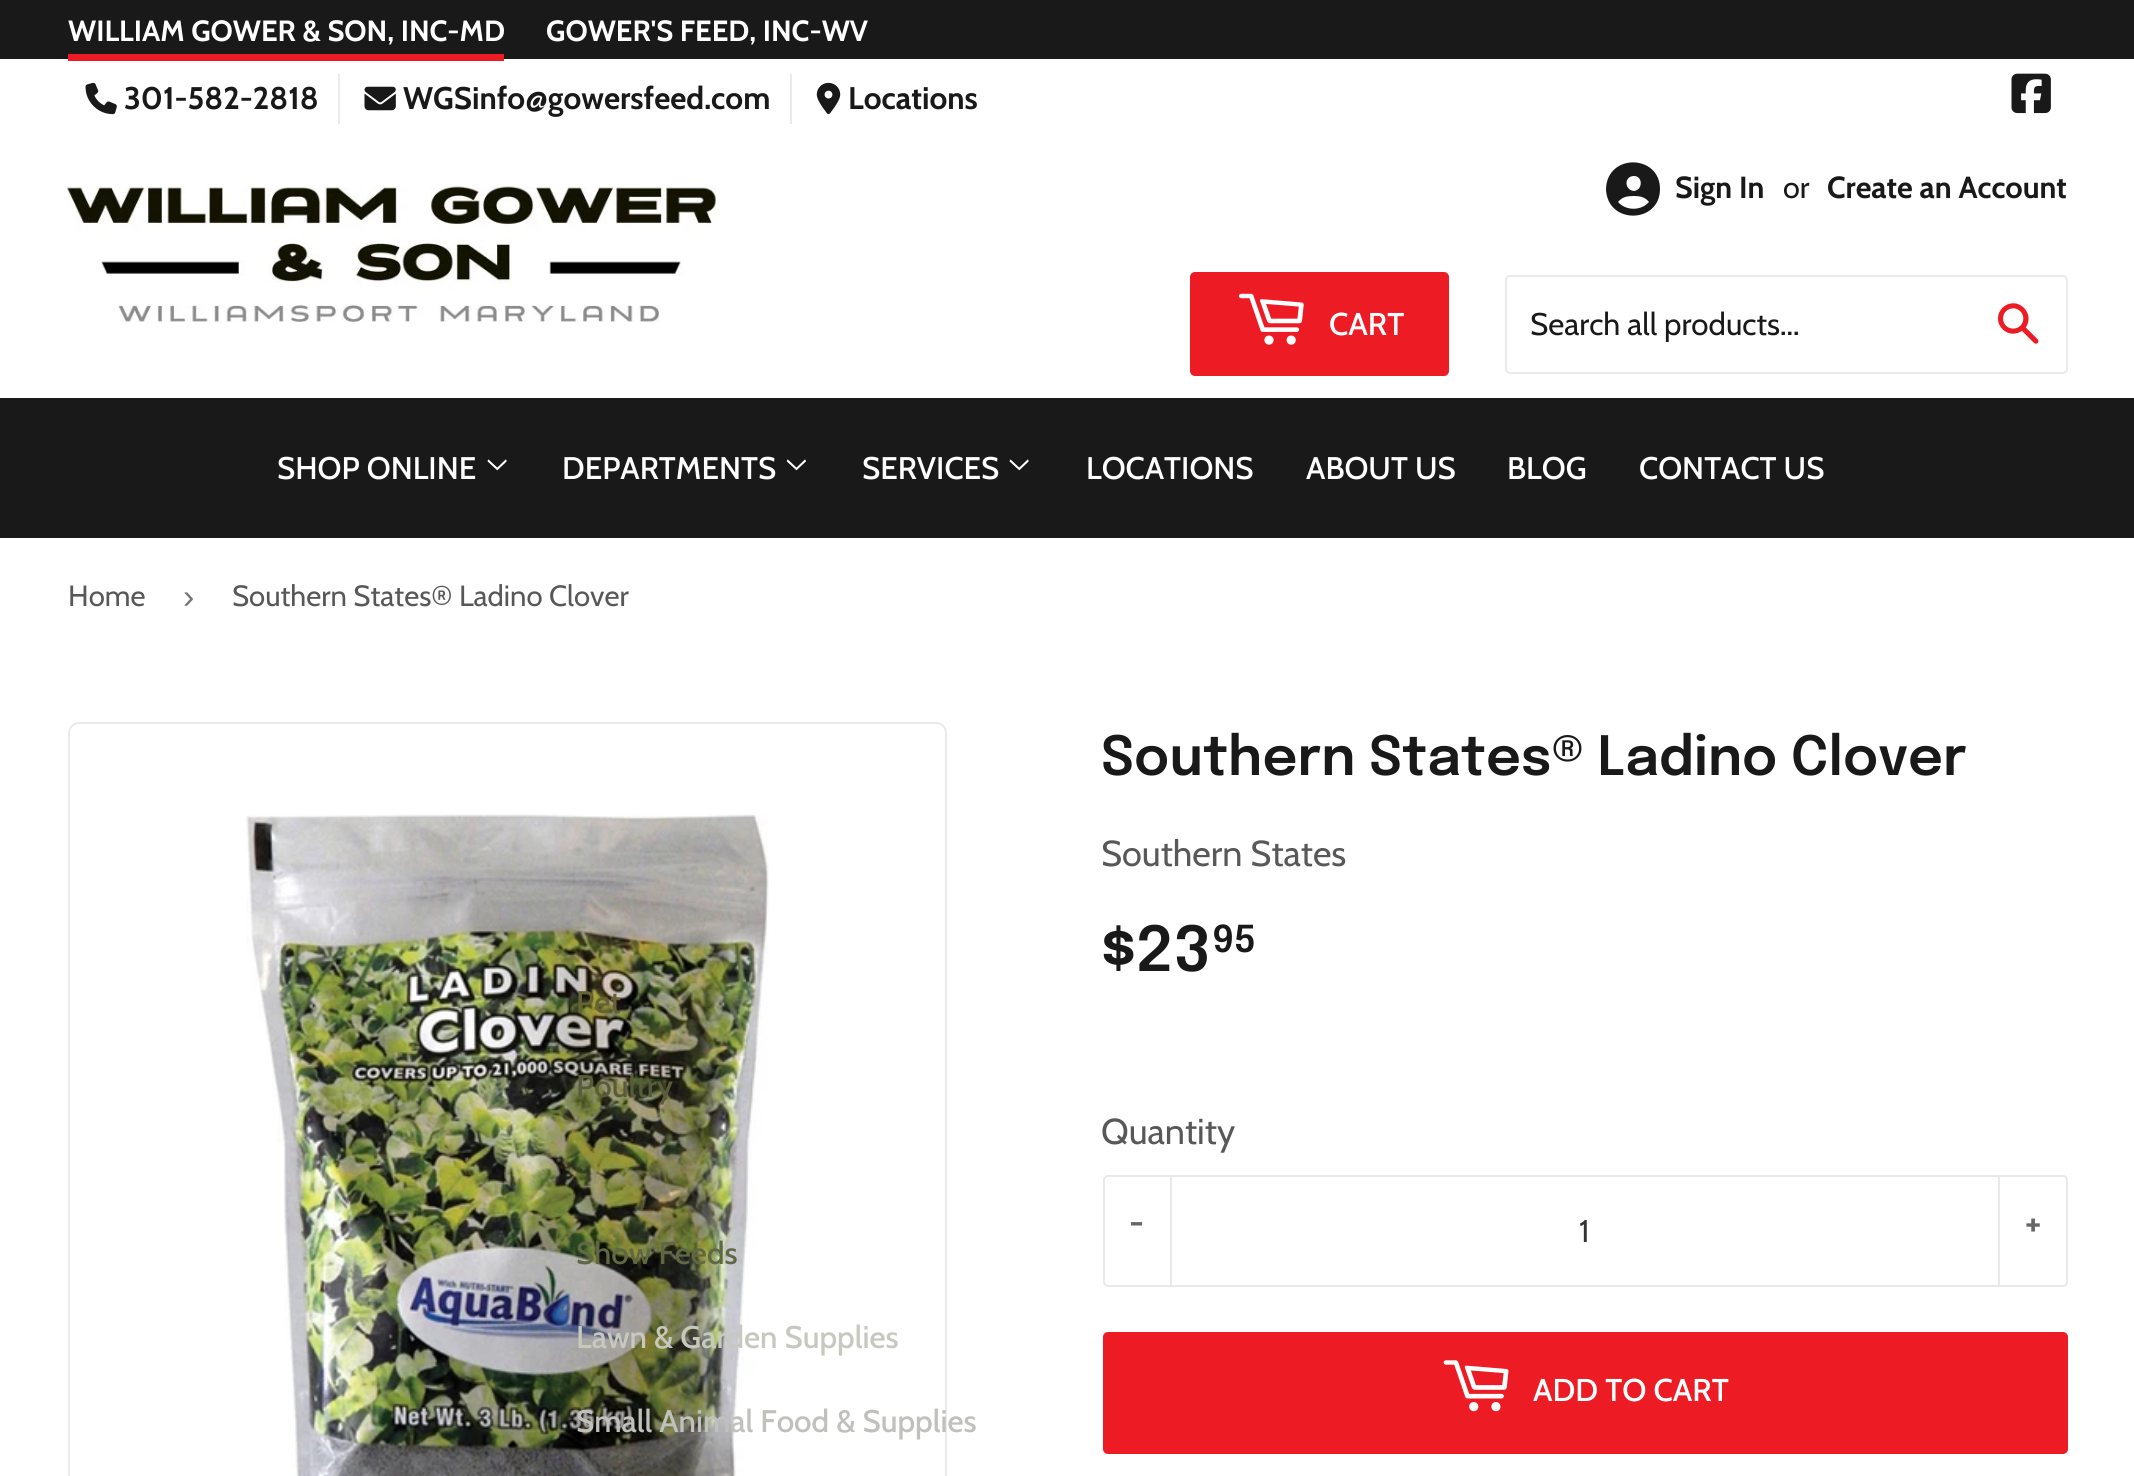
#include <cairo.h>
#include <math.h>
#include <stddef.h>

static cairo_t *ctx;

static void use_color(int r, int g, int b) {
    cairo_set_source_rgb(ctx, r / 255.0, g / 255.0, b / 255.0);
}

static void round_rect(double x, double y, double w, double h, double r) {
    cairo_new_sub_path(ctx);
    cairo_arc(ctx, x + w - r, y + h - r, r, 0, M_PI / 2);
    cairo_arc(ctx, x + r, y + h - r, r, M_PI / 2, M_PI);
    cairo_arc(ctx, x + r, y + r, r, M_PI, 1.5 * M_PI);
    cairo_arc(ctx, x + w - r, y + r, r, 1.5 * M_PI, 2 * M_PI);
    cairo_close_path(ctx);
}

static void picture(const char *path, double x, double y, double w, double h) {
    cairo_surface_t *image = cairo_image_surface_create_from_png(path);
    cairo_save(ctx);
    cairo_set_source_surface(ctx, image, x, y);
    cairo_rectangle(ctx, x, y, w, h);
    cairo_fill(ctx);
    cairo_restore(ctx);
    cairo_surface_destroy(image);
}

int main(void) {
    cairo_surface_t *surface = cairo_image_surface_create(CAIRO_FORMAT_RGB24, 2134, 1476);
    ctx = cairo_create(surface);
    cairo_font_options_t *options = cairo_font_options_create();
    cairo_font_options_set_hint_metrics(options, CAIRO_HINT_METRICS_OFF);
    cairo_font_options_set_hint_style(options, CAIRO_HINT_STYLE_NONE);
    cairo_set_font_options(ctx, options);
    cairo_set_miter_limit(ctx, 4);
    use_color(255, 255, 255);
    cairo_paint(ctx);
    use_color(25, 25, 25);
    cairo_rectangle(ctx, 0, 0, 2134, 59);
    cairo_fill(ctx);
    cairo_select_font_face(ctx, "Cabin", CAIRO_FONT_SLANT_NORMAL, CAIRO_FONT_WEIGHT_BOLD);
    cairo_set_font_size(ctx, 29.25);
    use_color(255, 255, 255);
    cairo_move_to(ctx, 68, 41);
    cairo_show_text(ctx, "WILLIAM GOWER & SON, INC-MD");
    use_color(237, 28, 36);
    cairo_rectangle(ctx, 68, 54, 436, 7);
    cairo_fill(ctx);
    use_color(255, 255, 255);
    cairo_move_to(ctx, 546, 41);
    cairo_show_text(ctx, "GOWER'S FEED, INC-WV");
    use_color(234, 234, 234);
    cairo_rectangle(ctx, 338, 74, 2, 50);
    cairo_fill(ctx);
    picture("img1.png", 85, 82, 32, 33);
    cairo_set_font_size(ctx, 31.25);
    use_color(25, 25, 25);
    cairo_move_to(ctx, 124, 109);
    cairo_show_text(ctx, "301-582-2818");
    use_color(234, 234, 234);
    cairo_rectangle(ctx, 790, 74, 2, 50);
    cairo_fill(ctx);
    picture("img2.png", 364, 86, 32, 25);
    use_color(25, 25, 25);
    cairo_move_to(ctx, 403, 109);
    cairo_show_text(ctx, "WGSinfo@gowersfeed.com");
    picture("img3.png", 816, 82, 25, 33);
    cairo_move_to(ctx, 848, 109);
    cairo_show_text(ctx, "Locations");
    picture("img4.png", 2011, 73, 40, 41);
    picture("img5.png", 67, 186, 649, 136);
    cairo_new_path(ctx);
    cairo_move_to(ctx, 1649, 202);
    cairo_curve_to(ctx, 1645, 197, 1640, 196, 1634, 196);
    cairo_curve_to(ctx, 1627, 196, 1622, 197, 1618, 202);
    cairo_curve_to(ctx, 1626, 211, 1641, 211, 1649, 202);
    cairo_close_path(ctx);
    cairo_move_to(ctx, 1606, 189);
    cairo_curve_to(ctx, 1607, 153, 1660, 154, 1660, 189);
    cairo_curve_to(ctx, 1660, 224, 1607, 225, 1606, 189);
    cairo_close_path(ctx);
    cairo_move_to(ctx, 1634, 191);
    cairo_curve_to(ctx, 1643, 190, 1643, 176, 1634, 176);
    cairo_curve_to(ctx, 1624, 176, 1624, 190, 1634, 191);
    cairo_close_path(ctx);
    cairo_fill(ctx);
    cairo_set_font_size(ctx, 30.5);
    cairo_move_to(ctx, 1675, 198);
    cairo_show_text(ctx, "Sign In");
    cairo_select_font_face(ctx, "Cabin", CAIRO_FONT_SLANT_NORMAL, CAIRO_FONT_WEIGHT_NORMAL);
    cairo_move_to(ctx, 1783, 198);
    cairo_show_text(ctx, "or");
    cairo_select_font_face(ctx, "Cabin", CAIRO_FONT_SLANT_NORMAL, CAIRO_FONT_WEIGHT_BOLD);
    cairo_move_to(ctx, 1827, 198);
    cairo_show_text(ctx, "Create an Account");
    use_color(237, 28, 36);
    round_rect(1190, 272, 259, 104, 5);
    cairo_fill(ctx);
    picture("img6.png", 1238, 293, 66, 52);
    cairo_select_font_face(ctx, "Cabin Medium", CAIRO_FONT_SLANT_NORMAL, CAIRO_FONT_WEIGHT_NORMAL);
    cairo_set_font_size(ctx, 31.5);
    use_color(255, 255, 255);
    cairo_move_to(ctx, 1329, 335);
    cairo_show_text(ctx, "CART");
    round_rect(1506, 276, 561, 97, 4);
    use_color(234, 234, 234);
    cairo_stroke(ctx);
    cairo_save(ctx);
    cairo_rectangle(ctx, 1530, 306, 425, 36);
    cairo_clip(ctx);
    cairo_select_font_face(ctx, "Cabin", CAIRO_FONT_SLANT_NORMAL, CAIRO_FONT_WEIGHT_NORMAL);
    cairo_set_font_size(ctx, 31.25);
    use_color(25, 25, 25);
    cairo_move_to(ctx, 1530, 335);
    cairo_show_text(ctx, "Search all products...");
    cairo_restore(ctx);
    picture("img7.png", 1998, 303, 41, 41);
    use_color(25, 25, 25);
    cairo_rectangle(ctx, 0, 398, 2134, 140);
    cairo_fill(ctx);
    cairo_set_font_size(ctx, 31.25);
    use_color(255, 255, 255);
    cairo_move_to(ctx, 277, 479);
    cairo_show_text(ctx, "SHOP ONLINE");
    picture("img8.png", 487, 459, 20, 12);
    cairo_move_to(ctx, 562, 479);
    cairo_show_text(ctx, "DEPARTMENTS");
    picture("img9.png", 786, 459, 20, 12);
    round_rect(69, 723, 877, 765, 10);
    use_color(234, 234, 234);
    cairo_stroke(ctx);
    picture("img10.png", 246, 814, 523, 662);
    use_color(101, 98, 54);
    cairo_move_to(ctx, 576, 1013);
    cairo_show_text(ctx, "Pet");
    use_color(89, 92, 59);
    cairo_move_to(ctx, 576, 1097);
    cairo_show_text(ctx, "Poultry");
    use_color(96, 103, 68);
    cairo_move_to(ctx, 576, 1264);
    cairo_show_text(ctx, "Show Feeds");
    use_color(199, 200, 191);
    cairo_move_to(ctx, 576, 1348);
    cairo_show_text(ctx, "Lawn & Garden Supplies");
    use_color(192, 193, 188);
    cairo_move_to(ctx, 576, 1432);
    cairo_show_text(ctx, "Small Animal Food & Supplies");
    use_color(255, 255, 255);
    cairo_move_to(ctx, 862, 479);
    cairo_show_text(ctx, "SERVICES");
    picture("img8.png", 1009, 459, 20, 12);
    cairo_move_to(ctx, 1086, 479);
    cairo_show_text(ctx, "LOCATIONS");
    cairo_move_to(ctx, 1306, 479);
    cairo_show_text(ctx, "ABOUT US");
    cairo_move_to(ctx, 1507, 479);
    cairo_show_text(ctx, "BLOG");
    cairo_move_to(ctx, 1639, 479);
    cairo_show_text(ctx, "CONTACT US");
    cairo_select_font_face(ctx, "Cabin", CAIRO_FONT_SLANT_NORMAL, CAIRO_FONT_WEIGHT_NORMAL);
    cairo_set_font_size(ctx, 29.25);
    use_color(88, 88, 88);
    cairo_move_to(ctx, 68, 606);
    cairo_show_text(ctx, "Home");
    cairo_select_font_face(ctx, "Liberation Sans", CAIRO_FONT_SLANT_NORMAL, CAIRO_FONT_WEIGHT_NORMAL);
    cairo_set_font_size(ctx, 34);
    use_color(118, 118, 118);
    cairo_move_to(ctx, 183, 608);
    cairo_show_text(ctx, "›");
    cairo_select_font_face(ctx, "Cabin", CAIRO_FONT_SLANT_NORMAL, CAIRO_FONT_WEIGHT_NORMAL);
    cairo_set_font_size(ctx, 29.25);
    use_color(88, 88, 88);
    cairo_move_to(ctx, 232, 606);
    cairo_show_text(ctx, "Southern States® Ladino Clover");
    cairo_select_font_face(ctx, "Epilogue SemiBold", CAIRO_FONT_SLANT_NORMAL, CAIRO_FONT_WEIGHT_NORMAL);
    cairo_set_font_size(ctx, 54);
    use_color(25, 25, 25);
    cairo_move_to(ctx, 1101, 775);
    cairo_show_text(ctx, "Southern States® Ladino Clover");
    cairo_select_font_face(ctx, "Cabin", CAIRO_FONT_SLANT_NORMAL, CAIRO_FONT_WEIGHT_NORMAL);
    cairo_set_font_size(ctx, 36);
    use_color(88, 88, 88);
    cairo_move_to(ctx, 1101, 866);
    cairo_show_text(ctx, "Southern States");
    cairo_select_font_face(ctx, "Epilogue SemiBold", CAIRO_FONT_SLANT_NORMAL, CAIRO_FONT_WEIGHT_NORMAL);
    cairo_set_font_size(ctx, 62);
    use_color(25, 25, 25);
    cairo_move_to(ctx, 1101, 971);
    cairo_show_text(ctx, "$23");
    cairo_set_font_size(ctx, 37);
    cairo_move_to(ctx, 1212, 952);
    cairo_show_text(ctx, "95");
    cairo_select_font_face(ctx, "Cabin", CAIRO_FONT_SLANT_NORMAL, CAIRO_FONT_WEIGHT_NORMAL);
    cairo_set_font_size(ctx, 36);
    use_color(88, 88, 88);
    cairo_move_to(ctx, 1101, 1144);
    cairo_show_text(ctx, "Quantity");
    round_rect(1104, 1176, 963, 110, 4);
    use_color(233, 233, 233);
    cairo_stroke(ctx);
    cairo_rectangle(ctx, 1170, 1177, 2, 108);
    cairo_fill(ctx);
    cairo_select_font_face(ctx, "Cabin", CAIRO_FONT_SLANT_NORMAL, CAIRO_FONT_WEIGHT_BOLD);
    use_color(102, 102, 102);
    cairo_move_to(ctx, 1129, 1235);
    cairo_show_text(ctx, "-");
    cairo_select_font_face(ctx, "Cabin", CAIRO_FONT_SLANT_NORMAL, CAIRO_FONT_WEIGHT_NORMAL);
    cairo_set_font_size(ctx, 31.5);
    use_color(51, 51, 51);
    cairo_move_to(ctx, 1579, 1242);
    cairo_show_text(ctx, "1");
    use_color(233, 233, 233);
    cairo_rectangle(ctx, 1998, 1177, 2, 108);
    cairo_fill(ctx);
    cairo_select_font_face(ctx, "Cabin", CAIRO_FONT_SLANT_NORMAL, CAIRO_FONT_WEIGHT_BOLD);
    cairo_set_font_size(ctx, 36);
    use_color(102, 102, 102);
    cairo_move_to(ctx, 2025, 1235);
    cairo_show_text(ctx, "+");
    use_color(237, 28, 36);
    round_rect(1103, 1332, 965, 122, 5);
    cairo_fill(ctx);
    picture("img11.png", 1443, 1360, 66, 52);
    cairo_select_font_face(ctx, "Cabin Medium", CAIRO_FONT_SLANT_NORMAL, CAIRO_FONT_WEIGHT_NORMAL);
    cairo_set_font_size(ctx, 31.5);
    use_color(255, 255, 255);
    cairo_move_to(ctx, 1533, 1401);
    cairo_show_text(ctx, "ADD TO CART");
    cairo_surface_write_to_png(surface, "result.png");
    cairo_font_options_destroy(options);
    cairo_destroy(ctx);
    cairo_surface_destroy(surface);
    return 0;
}
